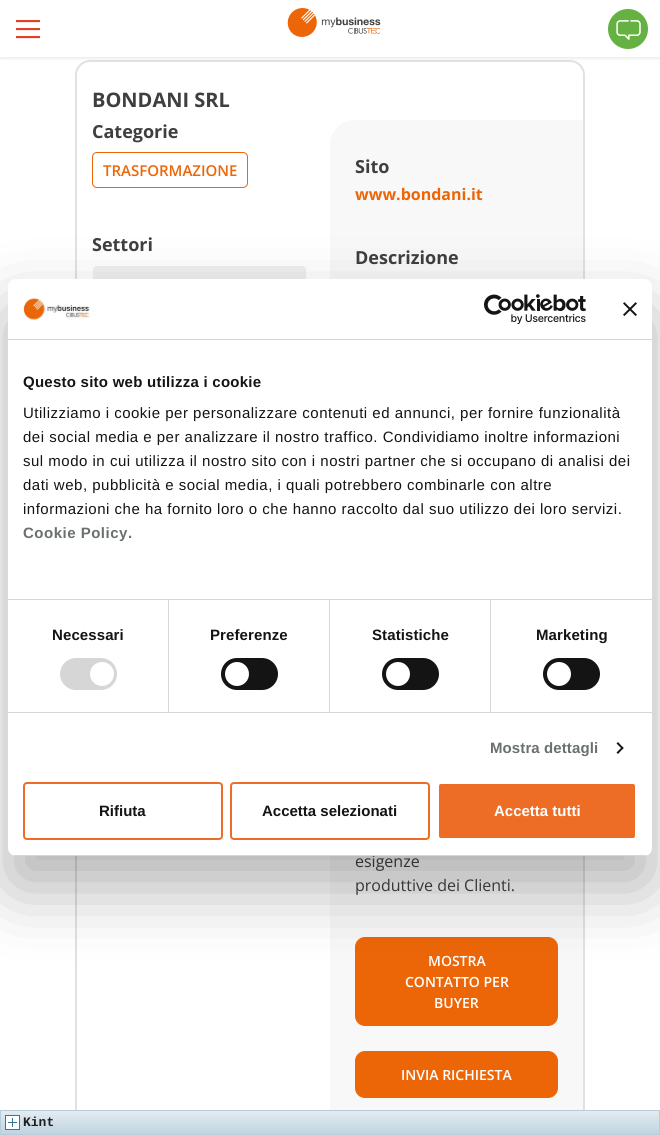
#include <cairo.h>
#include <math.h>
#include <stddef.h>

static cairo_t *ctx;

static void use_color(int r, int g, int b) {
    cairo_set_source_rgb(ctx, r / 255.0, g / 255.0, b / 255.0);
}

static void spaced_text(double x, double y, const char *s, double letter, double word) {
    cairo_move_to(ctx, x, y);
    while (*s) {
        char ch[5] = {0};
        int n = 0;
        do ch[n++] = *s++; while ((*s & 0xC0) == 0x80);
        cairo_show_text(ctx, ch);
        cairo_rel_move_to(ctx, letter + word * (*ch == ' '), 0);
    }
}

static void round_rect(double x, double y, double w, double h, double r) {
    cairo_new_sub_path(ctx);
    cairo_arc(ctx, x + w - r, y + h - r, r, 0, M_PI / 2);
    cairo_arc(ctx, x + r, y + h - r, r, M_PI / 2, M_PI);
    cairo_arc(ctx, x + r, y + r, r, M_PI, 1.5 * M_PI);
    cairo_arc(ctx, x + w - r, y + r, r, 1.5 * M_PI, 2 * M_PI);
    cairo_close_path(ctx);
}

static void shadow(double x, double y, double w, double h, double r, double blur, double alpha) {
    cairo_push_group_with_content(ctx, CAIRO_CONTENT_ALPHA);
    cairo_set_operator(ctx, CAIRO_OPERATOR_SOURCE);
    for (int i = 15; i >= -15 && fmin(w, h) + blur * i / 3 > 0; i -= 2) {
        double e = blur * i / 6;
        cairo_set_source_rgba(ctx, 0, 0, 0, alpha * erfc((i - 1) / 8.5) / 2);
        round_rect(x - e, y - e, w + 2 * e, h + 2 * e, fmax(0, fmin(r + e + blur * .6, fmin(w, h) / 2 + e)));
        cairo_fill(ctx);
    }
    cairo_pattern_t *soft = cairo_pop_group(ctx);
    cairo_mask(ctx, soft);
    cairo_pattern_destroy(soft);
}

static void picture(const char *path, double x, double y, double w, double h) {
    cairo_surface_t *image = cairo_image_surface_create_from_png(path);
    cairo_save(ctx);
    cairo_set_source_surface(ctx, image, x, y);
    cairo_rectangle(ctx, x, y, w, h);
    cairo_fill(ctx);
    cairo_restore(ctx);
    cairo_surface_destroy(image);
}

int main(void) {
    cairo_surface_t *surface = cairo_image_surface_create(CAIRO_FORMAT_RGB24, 660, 1135);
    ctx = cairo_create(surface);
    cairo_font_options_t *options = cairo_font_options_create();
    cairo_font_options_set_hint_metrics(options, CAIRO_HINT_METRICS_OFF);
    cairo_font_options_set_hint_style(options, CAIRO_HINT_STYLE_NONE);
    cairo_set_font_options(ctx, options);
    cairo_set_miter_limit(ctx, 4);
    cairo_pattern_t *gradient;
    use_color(255, 255, 255);
    cairo_paint(ctx);
    round_rect(76, 61, 508, 1073, 14);
    use_color(225, 225, 225);
    cairo_stroke(ctx);
    cairo_save(ctx);
    cairo_rectangle(ctx, 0, 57, 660, 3);
    cairo_clip(ctx);
    use_color(0, 0, 0);
    shadow(0, 0, 660, 57, 0, 3, 0.15);
    cairo_restore(ctx);
    picture("img1.png", 16, 20, 24, 19);
    picture("img2.png", 287, 8, 94, 29);
    use_color(101, 178, 67);
    cairo_arc(ctx, 628, 29, 20, 0, 2 * M_PI);
    cairo_fill(ctx);
    picture("img3.png", 616, 20, 25, 20);
    cairo_select_font_face(ctx, "Open Sans", CAIRO_FONT_SLANT_NORMAL, CAIRO_FONT_WEIGHT_BOLD);
    cairo_set_font_size(ctx, 20);
    use_color(63, 63, 63);
    cairo_move_to(ctx, 92, 107);
    cairo_show_text(ctx, "BONDANI SRL");
    cairo_set_font_size(ctx, 18);
    cairo_move_to(ctx, 92, 138);
    cairo_show_text(ctx, "Categorie");
    round_rect(92.5, 152.5, 155, 35, 4.5);
    use_color(236, 102, 8);
    cairo_set_line_width(ctx, 1);
    cairo_stroke(ctx);
    cairo_select_font_face(ctx, "Open Sans SemiBold", CAIRO_FONT_SLANT_NORMAL, CAIRO_FONT_WEIGHT_NORMAL);
    cairo_set_font_size(ctx, 15);
    cairo_move_to(ctx, 103, 176);
    cairo_show_text(ctx, "TRASFORMAZIONE");
    cairo_select_font_face(ctx, "Open Sans", CAIRO_FONT_SLANT_NORMAL, CAIRO_FONT_WEIGHT_BOLD);
    cairo_set_font_size(ctx, 18);
    use_color(63, 63, 63);
    cairo_move_to(ctx, 92, 251);
    cairo_show_text(ctx, "Settori");
    use_color(239, 239, 239);
    round_rect(92.5, 265.5, 214, 32, 4.5);
    cairo_fill_preserve(ctx);
    use_color(255, 255, 255);
    cairo_stroke(ctx);
    use_color(248, 248, 248);
    cairo_new_path(ctx);
    cairo_move_to(ctx, 355, 120);
    cairo_line_to(ctx, 583, 120);
    cairo_line_to(ctx, 583, 1120);
    cairo_curve_to(ctx, 583, 1127, 577, 1133, 570, 1133);
    cairo_line_to(ctx, 330, 1133);
    cairo_line_to(ctx, 330, 145);
    cairo_curve_to(ctx, 330, 131, 341, 120, 355, 120);
    cairo_close_path(ctx);
    cairo_fill(ctx);
    use_color(63, 63, 63);
    cairo_move_to(ctx, 355, 173);
    cairo_show_text(ctx, "Sito");
    cairo_set_font_size(ctx, 16);
    use_color(236, 102, 8);
    cairo_move_to(ctx, 355, 200);
    cairo_show_text(ctx, "www.bondani.it");
    cairo_set_font_size(ctx, 18);
    use_color(63, 63, 63);
    cairo_move_to(ctx, 355, 264);
    cairo_show_text(ctx, "Descrizione");
    cairo_select_font_face(ctx, "Open Sans", CAIRO_FONT_SLANT_NORMAL, CAIRO_FONT_WEIGHT_NORMAL);
    cairo_set_font_size(ctx, 16);
    cairo_move_to(ctx, 355, 867);
    cairo_show_text(ctx, "esigenze");
    cairo_move_to(ctx, 355, 891);
    cairo_show_text(ctx, "produttive dei Clienti.");
    use_color(236, 102, 8);
    round_rect(355.5, 937.5, 202, 88, 9.5);
    cairo_fill_preserve(ctx);
    cairo_stroke(ctx);
    cairo_select_font_face(ctx, "Open Sans SemiBold", CAIRO_FONT_SLANT_NORMAL, CAIRO_FONT_WEIGHT_NORMAL);
    cairo_set_font_size(ctx, 14);
    use_color(255, 255, 255);
    cairo_move_to(ctx, 428, 966);
    cairo_show_text(ctx, "MOSTRA");
    cairo_move_to(ctx, 405, 987);
    cairo_show_text(ctx, "CONTATTO PER");
    cairo_move_to(ctx, 434, 1008);
    cairo_show_text(ctx, "BUYER");
    use_color(236, 102, 8);
    round_rect(355.5, 1051.5, 202, 46, 9.5);
    cairo_fill_preserve(ctx);
    cairo_stroke(ctx);
    use_color(255, 255, 255);
    cairo_move_to(ctx, 401, 1080);
    cairo_show_text(ctx, "INVIA RICHIESTA");
    use_color(0, 0, 0);
    shadow(8, 311, 644, 577, 8, 34, 0.3);
    use_color(255, 255, 255);
    round_rect(8, 279, 644, 577, 8);
    cairo_fill(ctx);
    use_color(214, 214, 214);
    cairo_rectangle(ctx, 8, 339, 644, 1);
    cairo_fill(ctx);
    picture("img4.png", 23, 297, 67, 23);
    picture("img5.png", 484, 294, 102, 30);
    picture("img6.png", 623, 302, 14, 14);
    cairo_rectangle(ctx, 8, 599, 644, 1);
    cairo_fill(ctx);
    cairo_select_font_face(ctx, "Liberation Sans", CAIRO_FONT_SLANT_NORMAL, CAIRO_FONT_WEIGHT_BOLD);
    cairo_set_font_size(ctx, 15);
    use_color(20, 20, 20);
    spaced_text(23, 387, "Questo sito web utilizza i cookie", 0.25, 0);
    cairo_select_font_face(ctx, "Liberation Sans", CAIRO_FONT_SLANT_NORMAL, CAIRO_FONT_WEIGHT_NORMAL);
    spaced_text(23, 418, "Utilizziamo i cookie per personalizzare contenuti ed annunci, per fornire funzionalità", 0.5, 0);
    spaced_text(23, 442, "dei social media e per analizzare il nostro traffico. Condividiamo inoltre informazioni", 0.5, 0);
    spaced_text(23, 466, "sul modo in cui utilizza il nostro sito con i nostri partner che si occupano di analisi dei", 0.5, 0);
    spaced_text(23, 490, "dati web, pubblicità e social media, i quali potrebbero combinarle con altre", 0.5, 0);
    spaced_text(23, 514, "informazioni che ha fornito loro o che hanno raccolto dal suo utilizzo dei loro servizi.", 0.5, 0);
    cairo_select_font_face(ctx, "Liberation Sans", CAIRO_FONT_SLANT_NORMAL, CAIRO_FONT_WEIGHT_BOLD);
    use_color(106, 111, 112);
    spaced_text(23, 538, "Cookie Policy.", 0.5, 0);
    use_color(214, 214, 214);
    cairo_rectangle(ctx, 8, 712, 644, 1);
    cairo_fill(ctx);
    cairo_rectangle(ctx, 168, 600, 1, 112);
    cairo_fill(ctx);
    use_color(20, 20, 20);
    spaced_text(52, 640, "Necessari", 0.1, 0);
    use_color(214, 214, 214);
    round_rect(60, 658, 57, 32, 16);
    cairo_fill(ctx);
    use_color(255, 255, 255);
    cairo_arc(ctx, 102, 674, 12, 0, 2 * M_PI);
    cairo_fill(ctx);
    use_color(214, 214, 214);
    cairo_rectangle(ctx, 329, 600, 1, 112);
    cairo_fill(ctx);
    use_color(20, 20, 20);
    spaced_text(210, 640, "Preferenze", 0.1, 0);
    round_rect(221, 658, 57, 32, 16);
    cairo_fill(ctx);
    use_color(255, 255, 255);
    cairo_arc(ctx, 237, 674, 12, 0, 2 * M_PI);
    cairo_fill(ctx);
    use_color(214, 214, 214);
    cairo_rectangle(ctx, 490, 600, 1, 112);
    cairo_fill(ctx);
    use_color(20, 20, 20);
    spaced_text(372, 640, "Statistiche", 0.1, 0);
    round_rect(382, 658, 57, 32, 16);
    cairo_fill(ctx);
    use_color(255, 255, 255);
    cairo_arc(ctx, 398, 674, 12, 0, 2 * M_PI);
    cairo_fill(ctx);
    use_color(20, 20, 20);
    spaced_text(536, 640, "Marketing", 0.1, 0);
    round_rect(543, 658, 57, 32, 16);
    cairo_fill(ctx);
    use_color(255, 255, 255);
    cairo_arc(ctx, 559, 674, 12, 0, 2 * M_PI);
    cairo_fill(ctx);
    use_color(106, 111, 112);
    spaced_text(490, 753, "Mostra dettagli", 0.1, 0);
    use_color(20, 20, 20);
    cairo_new_path(ctx);
    cairo_move_to(ctx, 618, 742);
    cairo_line_to(ctx, 623.5, 748);
    cairo_line_to(ctx, 622.5, 749.5);
    cairo_line_to(ctx, 616.5, 743.5);
    cairo_close_path(ctx);
    cairo_fill(ctx);
    cairo_new_path(ctx);
    cairo_move_to(ctx, 622.5, 746.5);
    cairo_line_to(ctx, 623.5, 748);
    cairo_line_to(ctx, 618, 754);
    cairo_line_to(ctx, 616.5, 752.5);
    cairo_close_path(ctx);
    cairo_fill(ctx);
    cairo_save(ctx);
    round_rect(8, 279, 644, 577, 8);
    cairo_clip(ctx);
    use_color(214, 214, 214);
    cairo_rectangle(ctx, 8, 855, 644, 1);
    cairo_fill(ctx);
    cairo_restore(ctx);
    round_rect(24, 783, 198, 56, 3);
    use_color(237, 109, 38);
    cairo_set_line_width(ctx, 2);
    cairo_stroke(ctx);
    use_color(20, 20, 20);
    cairo_move_to(ctx, 99, 816);
    cairo_show_text(ctx, "Rifiuta");
    round_rect(231, 783, 198, 56, 3);
    use_color(237, 109, 38);
    cairo_stroke(ctx);
    use_color(20, 20, 20);
    cairo_move_to(ctx, 262, 816);
    cairo_show_text(ctx, "Accetta selezionati");
    use_color(237, 109, 38);
    round_rect(438, 783, 198, 56, 3);
    cairo_fill_preserve(ctx);
    use_color(255, 255, 255);
    cairo_stroke(ctx);
    cairo_move_to(ctx, 494, 816);
    cairo_show_text(ctx, "Accetta tutti");
    gradient = cairo_pattern_create_linear(330, 1111, 330, 1134);
    cairo_pattern_add_color_stop_rgba(gradient, 0, 0.89, 0.925, 0.941, 1);
    cairo_pattern_add_color_stop_rgba(gradient, 1, 0.753, 0.831, 0.875, 1);
    cairo_set_source(ctx, gradient);
    cairo_pattern_destroy(gradient);
    cairo_rectangle(ctx, 1, 1111, 658, 23);
    cairo_fill(ctx);
    cairo_rectangle(ctx, 0.5, 1110.5, 659, 24);
    use_color(182, 206, 219);
    cairo_set_line_width(ctx, 1);
    cairo_stroke(ctx);
    picture("img7.png", 5, 1115, 15, 15);
    cairo_select_font_face(ctx, "Liberation Mono", CAIRO_FONT_SLANT_NORMAL, CAIRO_FONT_WEIGHT_BOLD);
    cairo_set_font_size(ctx, 13);
    use_color(29, 30, 30);
    cairo_move_to(ctx, 23, 1126);
    cairo_show_text(ctx, "Kint");
    cairo_surface_write_to_png(surface, "result.png");
    cairo_font_options_destroy(options);
    cairo_destroy(ctx);
    cairo_surface_destroy(surface);
    return 0;
}
